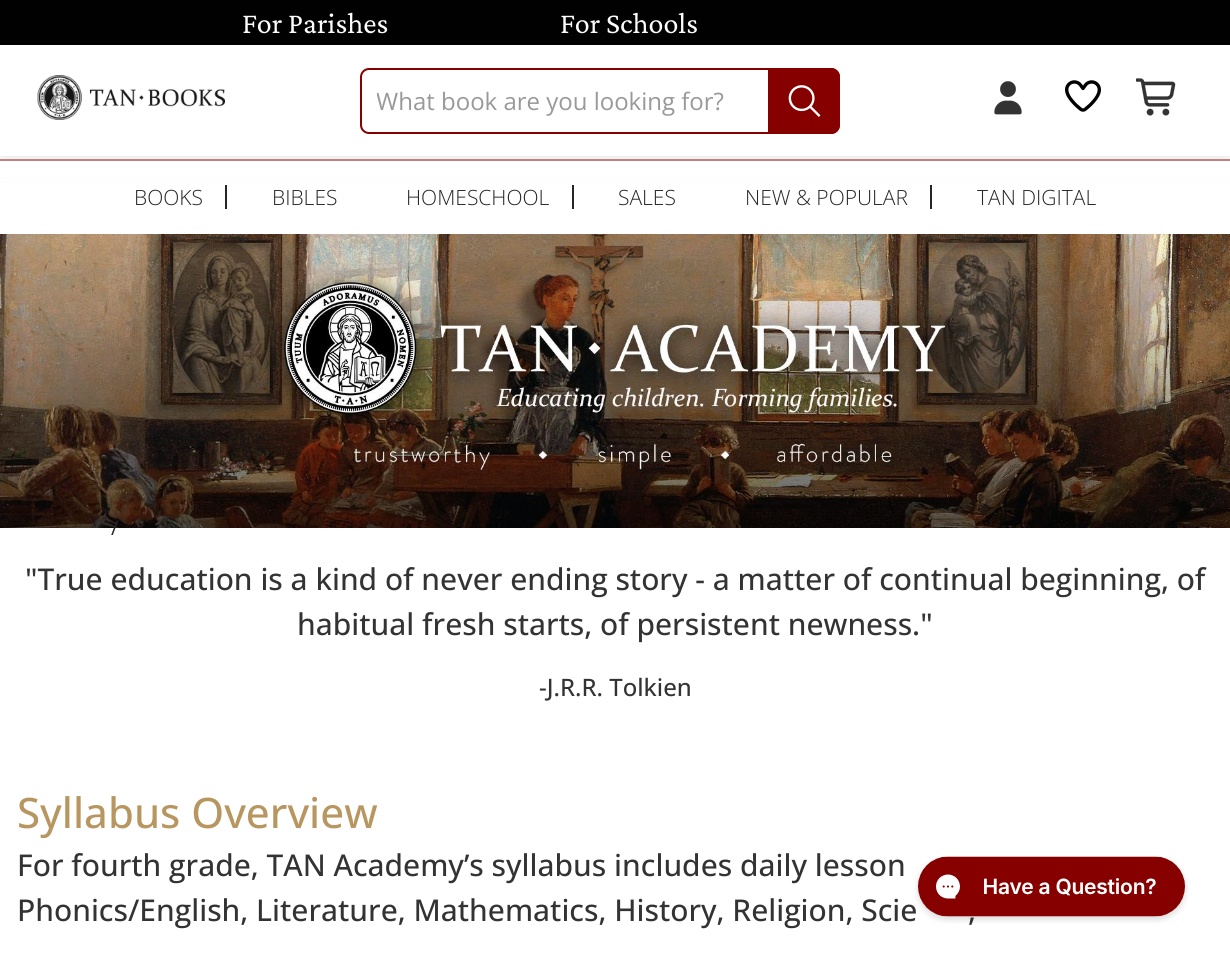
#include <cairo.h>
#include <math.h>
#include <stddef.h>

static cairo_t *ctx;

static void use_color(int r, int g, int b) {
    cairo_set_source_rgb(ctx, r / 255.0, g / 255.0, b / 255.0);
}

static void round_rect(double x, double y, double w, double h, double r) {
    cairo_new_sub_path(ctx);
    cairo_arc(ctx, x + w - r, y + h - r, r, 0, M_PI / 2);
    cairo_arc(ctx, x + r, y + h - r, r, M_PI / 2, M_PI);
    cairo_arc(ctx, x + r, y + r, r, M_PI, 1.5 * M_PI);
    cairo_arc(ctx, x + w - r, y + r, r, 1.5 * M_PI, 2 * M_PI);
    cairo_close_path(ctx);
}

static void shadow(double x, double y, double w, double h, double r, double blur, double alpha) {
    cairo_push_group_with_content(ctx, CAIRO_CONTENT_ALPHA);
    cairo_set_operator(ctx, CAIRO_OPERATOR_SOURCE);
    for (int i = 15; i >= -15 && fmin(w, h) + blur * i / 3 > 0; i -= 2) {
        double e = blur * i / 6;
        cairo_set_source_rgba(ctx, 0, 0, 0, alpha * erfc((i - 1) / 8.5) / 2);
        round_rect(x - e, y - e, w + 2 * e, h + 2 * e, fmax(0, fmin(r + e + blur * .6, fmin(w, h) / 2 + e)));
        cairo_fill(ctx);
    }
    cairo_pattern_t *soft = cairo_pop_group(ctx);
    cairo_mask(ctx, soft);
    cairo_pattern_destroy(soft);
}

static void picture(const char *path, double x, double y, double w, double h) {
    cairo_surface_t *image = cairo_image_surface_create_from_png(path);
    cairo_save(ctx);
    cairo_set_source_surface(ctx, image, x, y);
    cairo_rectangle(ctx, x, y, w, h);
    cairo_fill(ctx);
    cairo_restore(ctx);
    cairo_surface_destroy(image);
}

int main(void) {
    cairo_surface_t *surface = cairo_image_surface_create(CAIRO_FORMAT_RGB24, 1230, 956);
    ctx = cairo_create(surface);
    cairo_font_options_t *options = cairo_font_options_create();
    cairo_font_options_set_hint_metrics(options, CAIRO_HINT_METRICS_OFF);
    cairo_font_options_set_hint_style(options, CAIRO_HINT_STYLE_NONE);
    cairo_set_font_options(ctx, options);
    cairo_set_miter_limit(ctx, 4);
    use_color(255, 255, 255);
    cairo_paint(ctx);
    use_color(1, 1, 1);
    cairo_rectangle(ctx, 0, 0, 1230, 45);
    cairo_fill(ctx);
    cairo_select_font_face(ctx, "Crimson Pro", CAIRO_FONT_SLANT_NORMAL, CAIRO_FONT_WEIGHT_NORMAL);
    cairo_set_font_size(ctx, 30);
    use_color(255, 255, 255);
    cairo_move_to(ctx, 242, 33);
    cairo_show_text(ctx, "For Parishes");
    cairo_move_to(ctx, 560, 33);
    cairo_show_text(ctx, "For Schools");
    cairo_save(ctx);
    cairo_set_fill_rule(ctx, CAIRO_FILL_RULE_EVEN_ODD);
    cairo_new_path(ctx);
    cairo_move_to(ctx, 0, 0);
    cairo_line_to(ctx, 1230, 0);
    cairo_line_to(ctx, 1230, 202);
    cairo_line_to(ctx, 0, 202);
    cairo_close_path(ctx);
    cairo_move_to(ctx, 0, 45);
    cairo_line_to(ctx, 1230, 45);
    cairo_line_to(ctx, 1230, 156);
    cairo_line_to(ctx, 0, 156);
    cairo_close_path(ctx);
    cairo_clip(ctx);
    use_color(0, 0, 0);
    shadow(0, 45, 1230, 111, 0, 15, 0.12);
    cairo_restore(ctx);
    picture("img1.png", 37, 75, 188, 45);
    round_rect(361, 69, 478, 64, 8);
    use_color(135, 0, 0);
    cairo_stroke(ctx);
    cairo_save(ctx);
    cairo_rectangle(ctx, 377, 84, 387, 33);
    cairo_clip(ctx);
    cairo_select_font_face(ctx, "Open Sans", CAIRO_FONT_SLANT_NORMAL, CAIRO_FONT_WEIGHT_NORMAL);
    cairo_set_font_size(ctx, 24);
    use_color(153, 153, 153);
    cairo_move_to(ctx, 376, 110);
    cairo_show_text(ctx, "What book are you looking for?");
    cairo_restore(ctx);
    cairo_new_path(ctx);
    cairo_move_to(ctx, 768, 68);
    cairo_line_to(ctx, 831, 68);
    cairo_curve_to(ctx, 836, 68, 840, 72, 840, 77);
    cairo_line_to(ctx, 840, 125);
    cairo_curve_to(ctx, 840, 130, 836, 134, 831, 134);
    cairo_line_to(ctx, 768, 134);
    cairo_close_path(ctx);
    cairo_fill(ctx);
    picture("img2.png", 788, 85, 33, 32);
    picture("img3.png", 994, 81, 28, 34);
    picture("img4.png", 1065, 80, 36, 32);
    picture("img5.png", 1136, 78, 40, 38);
    use_color(255, 255, 255);
    cairo_rectangle(ctx, 0, 161, 1230, 16);
    cairo_fill(ctx);
    use_color(195, 128, 128);
    cairo_rectangle(ctx, 0, 159, 1230, 2);
    cairo_fill(ctx);
    cairo_select_font_face(ctx, "Open Sans Light", CAIRO_FONT_SLANT_NORMAL, CAIRO_FONT_WEIGHT_NORMAL);
    cairo_set_font_size(ctx, 21);
    use_color(38, 38, 38);
    cairo_move_to(ctx, 134, 205);
    cairo_show_text(ctx, "BOOKS");
    cairo_rectangle(ctx, 225, 185, 2, 24);
    cairo_fill(ctx);
    cairo_move_to(ctx, 272, 205);
    cairo_show_text(ctx, "BIBLES");
    cairo_move_to(ctx, 406, 205);
    cairo_show_text(ctx, "HOMESCHOOL");
    cairo_rectangle(ctx, 572, 185, 2, 24);
    cairo_fill(ctx);
    cairo_move_to(ctx, 618, 205);
    cairo_show_text(ctx, "SALES");
    cairo_move_to(ctx, 745, 205);
    cairo_show_text(ctx, "NEW & POPULAR");
    cairo_rectangle(ctx, 930, 185, 2, 24);
    cairo_fill(ctx);
    cairo_move_to(ctx, 977, 205);
    cairo_show_text(ctx, "TAN DIGITAL");
    picture("img6.png", 0, 234, 1230, 294);
    cairo_select_font_face(ctx, "Open Sans", CAIRO_FONT_SLANT_NORMAL, CAIRO_FONT_WEIGHT_NORMAL);
    cairo_set_font_size(ctx, 20);
    cairo_move_to(ctx, 111, 535);
    cairo_show_text(ctx, "/");
    cairo_select_font_face(ctx, "Open Sans Medium", CAIRO_FONT_SLANT_NORMAL, CAIRO_FONT_WEIGHT_NORMAL);
    cairo_set_font_size(ctx, 30);
    use_color(51, 51, 51);
    cairo_move_to(ctx, 25, 590);
    cairo_show_text(ctx, "\"True education is a kind of never ending story - a matter of continual beginning, of");
    cairo_move_to(ctx, 297, 635);
    cairo_show_text(ctx, "habitual fresh starts, of persistent newness.\"");
    cairo_set_font_size(ctx, 24);
    cairo_move_to(ctx, 539, 696);
    cairo_show_text(ctx, "-J.R.R. Tolkien");
    cairo_set_font_size(ctx, 42);
    use_color(183, 150, 96);
    cairo_move_to(ctx, 17, 828);
    cairo_show_text(ctx, "Syllabus Overview");
    cairo_set_font_size(ctx, 30);
    use_color(51, 51, 51);
    cairo_move_to(ctx, 17, 876);
    cairo_show_text(ctx, "For fourth grade, TAN Academy’s syllabus includes daily lesson");
    cairo_move_to(ctx, 17, 921);
    cairo_show_text(ctx, "Phonics/English, Literature, Mathematics, History, Religion, Scie");
    cairo_move_to(ctx, 968, 921);
    cairo_show_text(ctx, ",");
    picture("img7.png", 915, 856, 273, 67);
    cairo_surface_write_to_png(surface, "result.png");
    cairo_font_options_destroy(options);
    cairo_destroy(ctx);
    cairo_surface_destroy(surface);
    return 0;
}
